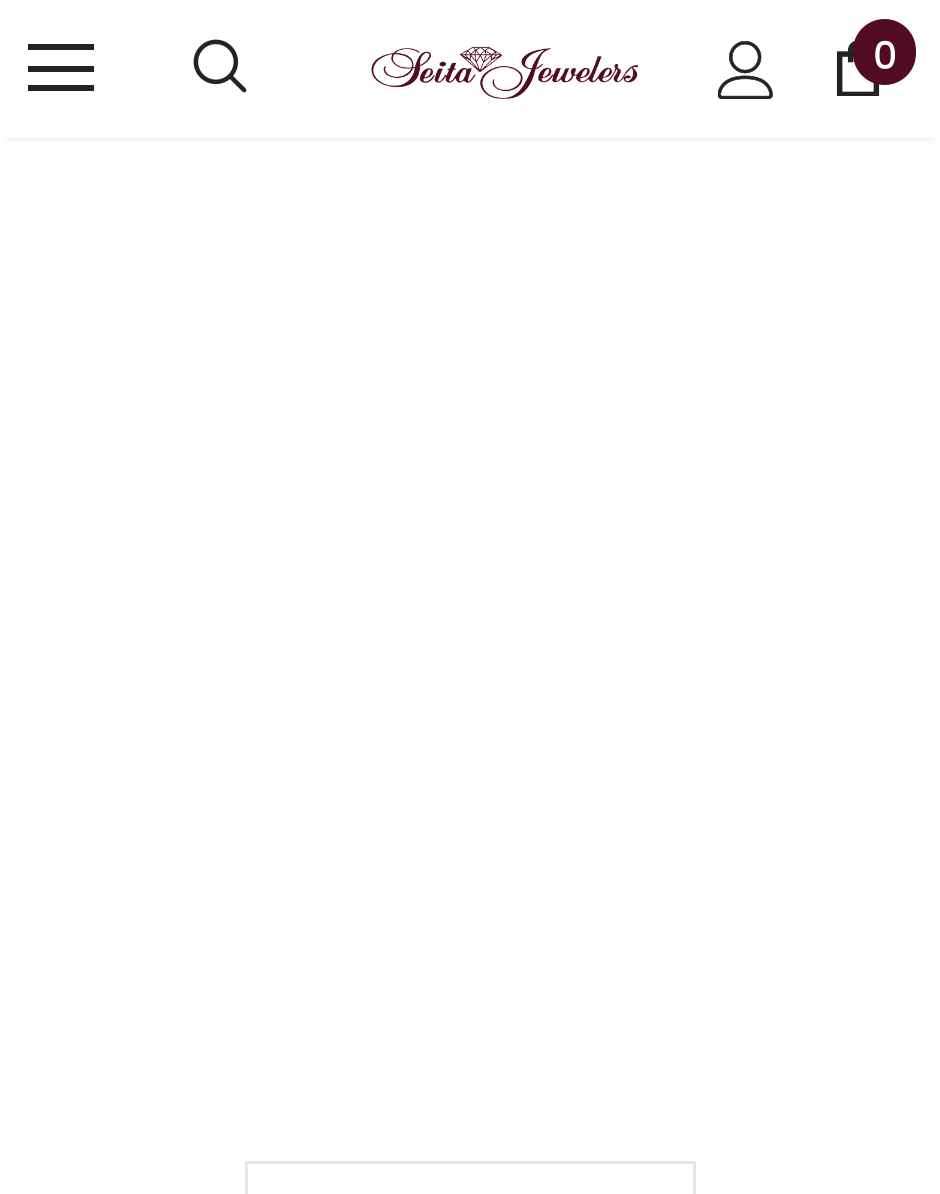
#include <cairo.h>
#include <math.h>
#include <stddef.h>

static cairo_t *ctx;

static void use_color(int r, int g, int b) {
    cairo_set_source_rgb(ctx, r / 255.0, g / 255.0, b / 255.0);
}

static void round_rect(double x, double y, double w, double h, double r) {
    cairo_new_sub_path(ctx);
    cairo_arc(ctx, x + w - r, y + h - r, r, 0, M_PI / 2);
    cairo_arc(ctx, x + r, y + h - r, r, M_PI / 2, M_PI);
    cairo_arc(ctx, x + r, y + r, r, M_PI, 1.5 * M_PI);
    cairo_arc(ctx, x + w - r, y + r, r, 1.5 * M_PI, 2 * M_PI);
    cairo_close_path(ctx);
}

static void shadow(double x, double y, double w, double h, double r, double blur, double alpha) {
    cairo_push_group_with_content(ctx, CAIRO_CONTENT_ALPHA);
    cairo_set_operator(ctx, CAIRO_OPERATOR_SOURCE);
    for (int i = 15; i >= -15 && fmin(w, h) + blur * i / 3 > 0; i -= 2) {
        double e = blur * i / 6;
        cairo_set_source_rgba(ctx, 0, 0, 0, alpha * erfc((i - 1) / 8.5) / 2);
        round_rect(x - e, y - e, w + 2 * e, h + 2 * e, fmax(0, fmin(r + e + blur * .6, fmin(w, h) / 2 + e)));
        cairo_fill(ctx);
    }
    cairo_pattern_t *soft = cairo_pop_group(ctx);
    cairo_mask(ctx, soft);
    cairo_pattern_destroy(soft);
}

static void picture(const char *path, double x, double y, double w, double h) {
    cairo_surface_t *image = cairo_image_surface_create_from_png(path);
    cairo_save(ctx);
    cairo_set_source_surface(ctx, image, x, y);
    cairo_rectangle(ctx, x, y, w, h);
    cairo_fill(ctx);
    cairo_restore(ctx);
    cairo_surface_destroy(image);
}

int main(void) {
    cairo_surface_t *surface = cairo_image_surface_create(CAIRO_FORMAT_RGB24, 940, 1194);
    ctx = cairo_create(surface);
    cairo_font_options_t *options = cairo_font_options_create();
    cairo_font_options_set_hint_metrics(options, CAIRO_HINT_METRICS_OFF);
    cairo_font_options_set_hint_style(options, CAIRO_HINT_STYLE_NONE);
    cairo_set_font_options(ctx, options);
    cairo_set_miter_limit(ctx, 4);
    use_color(255, 255, 255);
    cairo_paint(ctx);
    use_color(0, 0, 0);
    shadow(8, 17, 924, 121, 0, 4, 0.12);
    use_color(255, 255, 255);
    cairo_rectangle(ctx, 2, 11, 936, 127);
    cairo_fill(ctx);
    use_color(35, 35, 35);
    cairo_rectangle(ctx, 28, 44, 66, 6);
    cairo_fill(ctx);
    cairo_rectangle(ctx, 28, 66, 66, 6);
    cairo_fill(ctx);
    cairo_rectangle(ctx, 28, 85, 66, 6);
    cairo_fill(ctx);
    picture("img1.png", 193, 39, 54, 54);
    picture("img2.png", 371, 46, 267, 53);
    picture("img3.png", 718, 41, 55, 58);
    picture("img4.png", 836, 41, 44, 55);
    use_color(81, 11, 35);
    round_rect(853, 19, 63, 66, 31.5);
    cairo_fill(ctx);
    cairo_select_font_face(ctx, "Poppins Medium", CAIRO_FONT_SLANT_NORMAL, CAIRO_FONT_WEIGHT_NORMAL);
    cairo_set_font_size(ctx, 38);
    use_color(255, 255, 255);
    cairo_move_to(ctx, 873, 69);
    cairo_show_text(ctx, "0");
    cairo_rectangle(ctx, 246.5, 1162.5, 448, 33);
    use_color(230, 230, 230);
    cairo_set_line_width(ctx, 3);
    cairo_stroke(ctx);
    cairo_surface_write_to_png(surface, "result.png");
    cairo_font_options_destroy(options);
    cairo_destroy(ctx);
    cairo_surface_destroy(surface);
    return 0;
}
